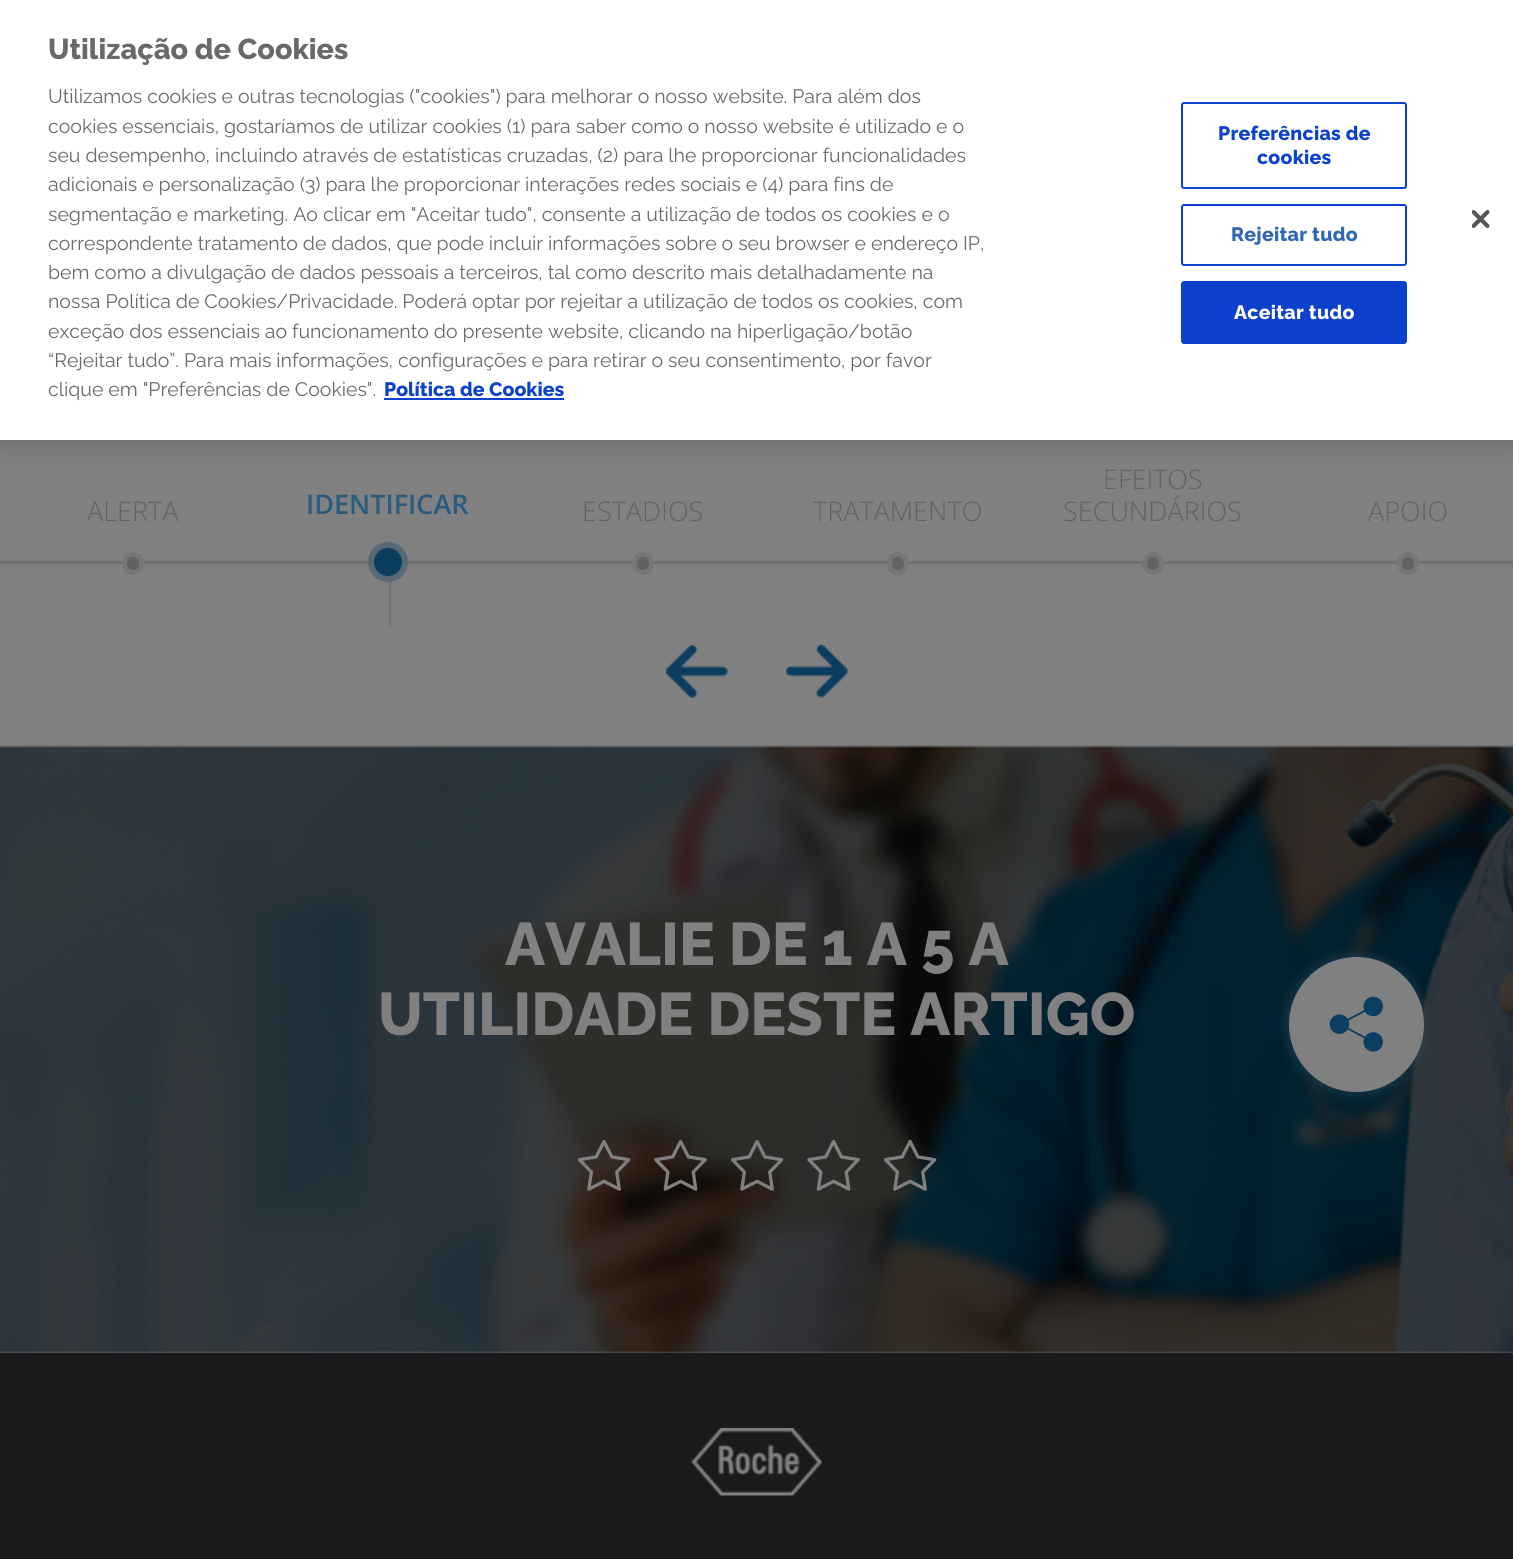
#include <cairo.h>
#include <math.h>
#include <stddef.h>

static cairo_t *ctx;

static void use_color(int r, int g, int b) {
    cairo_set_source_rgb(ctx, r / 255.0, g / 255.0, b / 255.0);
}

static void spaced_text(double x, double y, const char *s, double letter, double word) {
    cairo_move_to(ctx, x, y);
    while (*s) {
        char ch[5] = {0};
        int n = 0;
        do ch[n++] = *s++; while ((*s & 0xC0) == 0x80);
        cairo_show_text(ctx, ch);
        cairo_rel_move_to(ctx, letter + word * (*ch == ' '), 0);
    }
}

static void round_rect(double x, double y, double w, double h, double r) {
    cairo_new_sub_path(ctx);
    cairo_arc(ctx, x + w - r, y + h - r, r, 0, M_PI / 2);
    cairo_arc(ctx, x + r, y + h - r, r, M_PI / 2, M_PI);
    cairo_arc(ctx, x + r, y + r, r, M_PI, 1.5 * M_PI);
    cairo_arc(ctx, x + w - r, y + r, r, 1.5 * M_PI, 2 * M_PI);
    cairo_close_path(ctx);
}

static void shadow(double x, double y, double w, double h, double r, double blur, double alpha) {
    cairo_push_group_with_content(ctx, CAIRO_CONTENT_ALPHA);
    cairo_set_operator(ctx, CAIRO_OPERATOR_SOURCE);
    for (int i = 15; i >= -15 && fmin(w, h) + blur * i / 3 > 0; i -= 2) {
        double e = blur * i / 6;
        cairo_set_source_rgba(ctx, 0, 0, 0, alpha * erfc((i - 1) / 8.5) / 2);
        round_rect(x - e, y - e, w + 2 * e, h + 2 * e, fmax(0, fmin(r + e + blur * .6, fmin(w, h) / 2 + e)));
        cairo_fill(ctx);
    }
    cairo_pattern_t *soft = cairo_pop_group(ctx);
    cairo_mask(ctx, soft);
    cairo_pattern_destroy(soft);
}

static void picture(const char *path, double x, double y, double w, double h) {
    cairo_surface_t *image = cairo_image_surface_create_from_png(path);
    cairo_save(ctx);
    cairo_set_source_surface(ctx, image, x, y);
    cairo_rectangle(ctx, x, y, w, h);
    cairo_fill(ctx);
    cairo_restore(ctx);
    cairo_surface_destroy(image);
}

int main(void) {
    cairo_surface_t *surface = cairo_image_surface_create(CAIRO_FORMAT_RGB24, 1513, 1559);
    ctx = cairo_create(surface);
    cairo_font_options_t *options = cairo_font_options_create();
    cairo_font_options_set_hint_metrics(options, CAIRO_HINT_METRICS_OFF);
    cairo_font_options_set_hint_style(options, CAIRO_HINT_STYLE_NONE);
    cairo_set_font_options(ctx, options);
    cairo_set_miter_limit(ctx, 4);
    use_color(128, 128, 128);
    cairo_paint(ctx);
    use_color(0, 0, 0);
    shadow(0, 0, 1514, 440, 0, 13.5, 0.2);
    use_color(255, 255, 255);
    cairo_rectangle(ctx, 0, 0, 1513, 440);
    cairo_fill(ctx);
    cairo_select_font_face(ctx, "Raleway Thin", CAIRO_FONT_SLANT_NORMAL, CAIRO_FONT_WEIGHT_NORMAL);
    cairo_set_font_size(ctx, 28.75);
    use_color(105, 105, 105);
    cairo_move_to(ctx, 48, 59);
    cairo_show_text(ctx, "Utilização de Cookies");
    cairo_select_font_face(ctx, "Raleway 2 Thin", CAIRO_FONT_SLANT_NORMAL, CAIRO_FONT_WEIGHT_NORMAL);
    cairo_set_font_size(ctx, 19.5);
    cairo_move_to(ctx, 48, 103);
    cairo_show_text(ctx, "Utilizamos cookies e outras tecnologias (\"cookies\") para melhorar o nosso website. Para além dos");
    cairo_move_to(ctx, 48, 133);
    cairo_show_text(ctx, "cookies essenciais, gostaríamos de utilizar cookies (1) para saber como o nosso website é utilizado e o");
    cairo_move_to(ctx, 48, 162);
    cairo_show_text(ctx, "seu desempenho, incluindo através de estatísticas cruzadas, (2) para lhe proporcionar funcionalidades");
    cairo_move_to(ctx, 48, 191);
    cairo_show_text(ctx, "adicionais e personalização (3) para lhe proporcionar interações redes sociais e (4) para fins de");
    cairo_move_to(ctx, 48, 221);
    cairo_show_text(ctx, "segmentação e marketing. Ao clicar em \"Aceitar tudo\", consente a utilização de todos os cookies e o");
    cairo_move_to(ctx, 48, 250);
    cairo_show_text(ctx, "correspondente tratamento de dados, que pode incluir informações sobre o seu browser e endereço IP,");
    cairo_move_to(ctx, 48, 279);
    cairo_show_text(ctx, "bem como a divulgação de dados pessoais a terceiros, tal como descrito mais detalhadamente na");
    cairo_move_to(ctx, 48, 308);
    cairo_show_text(ctx, "nossa Política de Cookies/Privacidade. Poderá optar por rejeitar a utilização de todos os cookies, com");
    cairo_move_to(ctx, 48, 338);
    cairo_show_text(ctx, "exceção dos essenciais ao funcionamento do presente website, clicando na hiperligação/botão");
    cairo_move_to(ctx, 48, 367);
    cairo_show_text(ctx, "“Rejeitar tudo”. Para mais informações, configurações e para retirar o seu consentimento, por favor");
    cairo_move_to(ctx, 48, 396);
    cairo_show_text(ctx, "clique em \"Preferências de Cookies\".");
    cairo_select_font_face(ctx, "Raleway Thin", CAIRO_FONT_SLANT_NORMAL, CAIRO_FONT_WEIGHT_NORMAL);
    use_color(11, 65, 205);
    cairo_move_to(ctx, 384, 396);
    cairo_show_text(ctx, "Política de Cookies");
    cairo_rectangle(ctx, 384, 398, 180, 2);
    cairo_fill(ctx);
    round_rect(1182, 103, 224, 85, 2);
    cairo_stroke(ctx);
    spaced_text(1218, 140, "Preferências de", 0.25, 0);
    spaced_text(1257, 164, "cookies", 0.25, 0);
    round_rect(1182, 205, 224, 60, 2);
    cairo_stroke(ctx);
    use_color(49, 104, 182);
    spaced_text(1231, 241, "Rejeitar tudo", 0.25, 0);
    use_color(11, 65, 205);
    round_rect(1182, 282, 224, 61, 2);
    cairo_fill_preserve(ctx);
    cairo_stroke(ctx);
    use_color(255, 255, 255);
    spaced_text(1234, 319, "Aceitar tudo", 0.25, 0);
    picture("img1.png", 1472, 210, 18, 18);
    cairo_select_font_face(ctx, "Open Sans Light", CAIRO_FONT_SLANT_NORMAL, CAIRO_FONT_WEIGHT_NORMAL);
    cairo_set_font_size(ctx, 27);
    use_color(98, 98, 100);
    cairo_move_to(ctx, 87, 521);
    cairo_show_text(ctx, "ALERTA");
    use_color(112, 112, 113);
    cairo_rectangle(ctx, 0, 561, 1513, 3);
    cairo_fill(ctx);
    use_color(98, 98, 100);
    round_rect(124.5, 554.5, 17, 18, 8.5);
    cairo_fill_preserve(ctx);
    use_color(118, 118, 118);
    cairo_set_line_width(ctx, 5);
    cairo_stroke(ctx);
    cairo_select_font_face(ctx, "Open Sans SemiBold", CAIRO_FONT_SLANT_NORMAL, CAIRO_FONT_WEIGHT_NORMAL);
    use_color(40, 91, 126);
    cairo_move_to(ctx, 306, 514);
    cairo_show_text(ctx, "IDENTIFICAR");
    use_color(112, 112, 113);
    cairo_rectangle(ctx, 389, 581, 2, 45);
    cairo_fill(ctx);
    use_color(11, 61, 95);
    cairo_arc(ctx, 388, 562, 17, 0, 2 * M_PI);
    cairo_fill_preserve(ctx);
    use_color(87, 105, 117);
    cairo_set_line_width(ctx, 6);
    cairo_stroke(ctx);
    cairo_select_font_face(ctx, "Open Sans Light", CAIRO_FONT_SLANT_NORMAL, CAIRO_FONT_WEIGHT_NORMAL);
    use_color(98, 98, 100);
    cairo_move_to(ctx, 582, 521);
    cairo_show_text(ctx, "ESTADIOS");
    round_rect(634.5, 554.5, 17, 18, 8.5);
    cairo_fill_preserve(ctx);
    use_color(118, 118, 118);
    cairo_set_line_width(ctx, 5);
    cairo_stroke(ctx);
    use_color(98, 98, 100);
    cairo_move_to(ctx, 813, 521);
    cairo_show_text(ctx, "TRATAMENTO");
    round_rect(889.5, 554.5, 17, 18, 8.5);
    cairo_fill_preserve(ctx);
    use_color(118, 118, 118);
    cairo_stroke(ctx);
    use_color(98, 98, 100);
    cairo_move_to(ctx, 1103, 489);
    cairo_show_text(ctx, "EFEITOS");
    cairo_move_to(ctx, 1063, 521);
    cairo_show_text(ctx, "SECUNDÁRIOS");
    round_rect(1144.5, 554.5, 17, 18, 8.5);
    cairo_fill_preserve(ctx);
    use_color(118, 118, 118);
    cairo_stroke(ctx);
    use_color(98, 98, 100);
    cairo_move_to(ctx, 1368, 521);
    cairo_show_text(ctx, "APOIO");
    round_rect(1399.5, 554.5, 17, 18, 8.5);
    cairo_fill_preserve(ctx);
    use_color(118, 118, 118);
    cairo_stroke(ctx);
    picture("img2.png", 666, 645, 62, 53);
    picture("img3.png", 786, 645, 62, 53);
    picture("img4.png", 0, 745, 1513, 608);
    cairo_select_font_face(ctx, "Raleway Thin", CAIRO_FONT_SLANT_NORMAL, CAIRO_FONT_WEIGHT_NORMAL);
    cairo_set_font_size(ctx, 60);
    use_color(128, 128, 128);
    cairo_move_to(ctx, 505, 965);
    cairo_show_text(ctx, "AVALIE DE 1 A 5 A");
    cairo_move_to(ctx, 378, 1035);
    cairo_show_text(ctx, "UTILIDADE DESTE ARTIGO");
    picture("img5.png", 578, 1139, 53, 52);
    picture("img6.png", 654, 1139, 53, 52);
    picture("img7.png", 731, 1139, 53, 52);
    picture("img8.png", 807, 1139, 53, 52);
    picture("img9.png", 884, 1139, 53, 52);
    use_color(45, 73, 91);
    shadow(1284, 953, 144, 144, 72, 4, 0.4);
    use_color(128, 128, 128);
    cairo_arc(ctx, 1356.5, 1024.5, 67.5, 0, 2 * M_PI);
    cairo_fill(ctx);
    picture("img10.png", 1329, 996, 54, 56);
    use_color(27, 27, 29);
    cairo_rectangle(ctx, 0, 1353, 1513, 206);
    cairo_fill(ctx);
    picture("img11.png", 691, 1428, 131, 68);
    cairo_surface_write_to_png(surface, "result.png");
    cairo_font_options_destroy(options);
    cairo_destroy(ctx);
    cairo_surface_destroy(surface);
    return 0;
}
